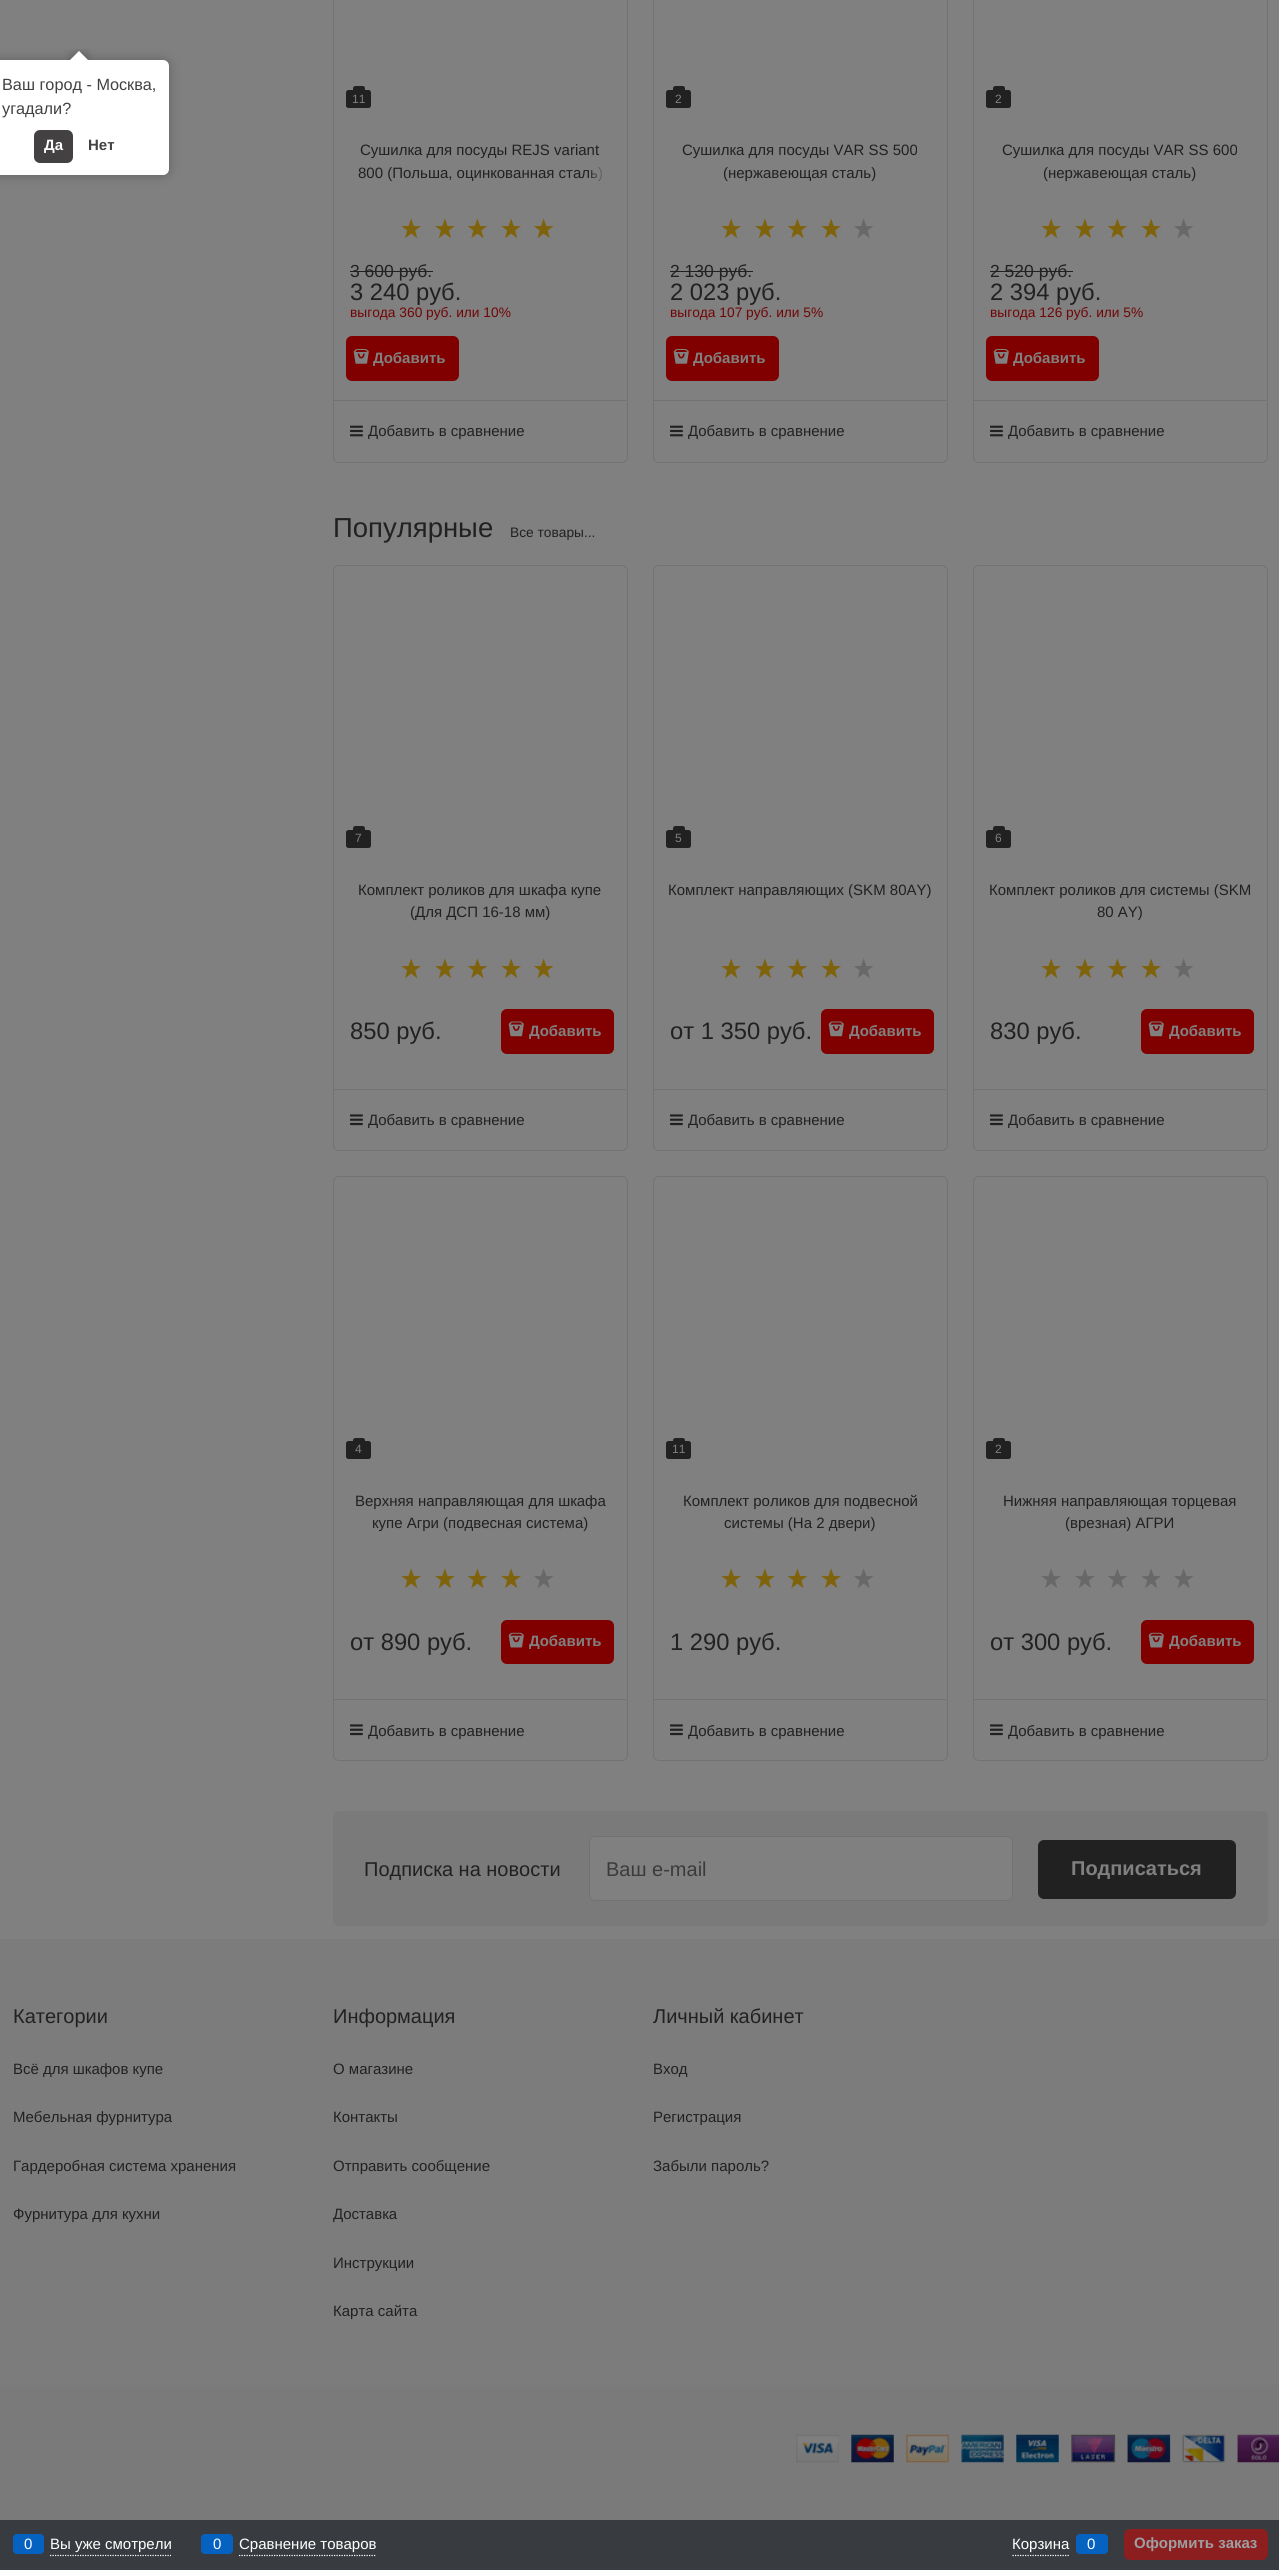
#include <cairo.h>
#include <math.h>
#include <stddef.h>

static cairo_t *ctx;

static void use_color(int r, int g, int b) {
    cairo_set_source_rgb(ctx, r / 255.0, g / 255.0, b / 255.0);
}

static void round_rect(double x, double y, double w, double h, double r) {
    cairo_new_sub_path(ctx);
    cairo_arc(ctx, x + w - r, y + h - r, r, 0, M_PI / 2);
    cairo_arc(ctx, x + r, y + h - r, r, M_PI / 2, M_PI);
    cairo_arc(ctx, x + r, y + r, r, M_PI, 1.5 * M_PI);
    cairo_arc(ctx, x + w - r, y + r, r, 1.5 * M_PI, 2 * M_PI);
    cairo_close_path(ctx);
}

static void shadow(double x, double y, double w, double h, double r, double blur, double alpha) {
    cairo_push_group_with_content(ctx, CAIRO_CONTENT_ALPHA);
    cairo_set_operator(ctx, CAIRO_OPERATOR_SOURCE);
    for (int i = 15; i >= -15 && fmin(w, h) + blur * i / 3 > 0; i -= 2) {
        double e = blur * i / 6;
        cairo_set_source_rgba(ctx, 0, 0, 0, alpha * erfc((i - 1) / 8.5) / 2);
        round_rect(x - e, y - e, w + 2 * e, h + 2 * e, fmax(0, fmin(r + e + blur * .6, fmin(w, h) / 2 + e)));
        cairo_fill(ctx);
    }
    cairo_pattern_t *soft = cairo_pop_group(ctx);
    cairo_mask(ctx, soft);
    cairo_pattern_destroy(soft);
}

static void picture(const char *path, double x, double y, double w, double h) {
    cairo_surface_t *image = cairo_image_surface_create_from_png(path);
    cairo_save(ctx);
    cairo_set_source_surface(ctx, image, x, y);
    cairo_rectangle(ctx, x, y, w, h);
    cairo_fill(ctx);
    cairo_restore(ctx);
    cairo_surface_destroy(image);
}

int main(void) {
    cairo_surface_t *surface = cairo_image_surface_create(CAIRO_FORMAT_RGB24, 1279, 2570);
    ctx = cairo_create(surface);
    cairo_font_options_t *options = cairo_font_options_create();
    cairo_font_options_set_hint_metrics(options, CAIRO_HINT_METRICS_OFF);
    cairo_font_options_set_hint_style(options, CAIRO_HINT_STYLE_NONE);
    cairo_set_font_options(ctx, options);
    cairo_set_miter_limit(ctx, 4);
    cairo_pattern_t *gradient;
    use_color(128, 128, 128);
    cairo_paint(ctx);
    use_color(0, 0, 0);
    shadow(-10, 60, 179, 115, 6, 5.5, 0.25);
    use_color(255, 255, 255);
    round_rect(-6, 60, 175, 115, 6);
    cairo_fill(ctx);
    cairo_save(ctx);
    cairo_rectangle(ctx, 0, 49, 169, 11);
    cairo_clip(ctx);
    use_color(0, 0, 0);
    shadow(73, 54, 12, 12, 0, 5.5, 0.25);
    cairo_restore(ctx);
    cairo_save(ctx);
    cairo_rectangle(ctx, 0, 49, 169, 11);
    cairo_clip(ctx);
    cairo_new_path(ctx);
    cairo_move_to(ctx, 79, 51);
    cairo_line_to(ctx, 88, 60);
    cairo_line_to(ctx, 79, 69);
    cairo_line_to(ctx, 70, 60);
    cairo_close_path(ctx);
    cairo_fill(ctx);
    cairo_restore(ctx);
    cairo_select_font_face(ctx, "Liberation Sans", CAIRO_FONT_SLANT_NORMAL, CAIRO_FONT_WEIGHT_NORMAL);
    cairo_set_font_size(ctx, 16.25);
    use_color(67, 65, 66);
    cairo_move_to(ctx, 2, 90);
    cairo_show_text(ctx, "Ваш город - Москва,");
    cairo_move_to(ctx, 2, 114);
    cairo_show_text(ctx, "угадали?");
    round_rect(34, 130, 39, 33, 6);
    cairo_fill(ctx);
    cairo_select_font_face(ctx, "Liberation Sans", CAIRO_FONT_SLANT_NORMAL, CAIRO_FONT_WEIGHT_BOLD);
    cairo_set_font_size(ctx, 15);
    use_color(255, 255, 255);
    cairo_move_to(ctx, 44, 150);
    cairo_show_text(ctx, "Да");
    use_color(67, 65, 66);
    cairo_move_to(ctx, 88, 150);
    cairo_show_text(ctx, "Нет");
    round_rect(333.5, -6.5, 294, 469, 5.5);
    use_color(113, 114, 114);
    cairo_set_line_width(ctx, 1);
    cairo_stroke(ctx);
    use_color(34, 33, 33);
    round_rect(346, 90, 25, 18, 2.5);
    cairo_fill(ctx);
    cairo_new_path(ctx);
    cairo_move_to(ctx, 355.5, 86);
    cairo_line_to(ctx, 362.5, 86);
    cairo_curve_to(ctx, 364, 86, 365, 87, 365, 88.5);
    cairo_line_to(ctx, 365, 90);
    cairo_line_to(ctx, 353, 90);
    cairo_line_to(ctx, 353, 88.5);
    cairo_curve_to(ctx, 353, 87, 354, 86, 355.5, 86);
    cairo_close_path(ctx);
    cairo_fill(ctx);
    cairo_select_font_face(ctx, "Liberation Sans", CAIRO_FONT_SLANT_NORMAL, CAIRO_FONT_WEIGHT_NORMAL);
    cairo_set_font_size(ctx, 12);
    use_color(128, 128, 128);
    cairo_move_to(ctx, 352, 103);
    cairo_show_text(ctx, "11");
    cairo_set_font_size(ctx, 15);
    use_color(34, 33, 33);
    cairo_move_to(ctx, 360, 155);
    cairo_show_text(ctx, "Сушилка для посуды REJS variant");
    cairo_move_to(ctx, 358, 178);
    cairo_show_text(ctx, "800 (Польша, оцинкованная сталь)");
    gradient = cairo_pattern_create_linear(588, 176, 614, 176);
    cairo_pattern_add_color_stop_rgba(gradient, 0, 0.502, 0.502, 0.502, 0);
    cairo_pattern_add_color_stop_rgba(gradient, 0.7, 0.502, 0.502, 0.502, 1);
    cairo_set_source(ctx, gradient);
    cairo_pattern_destroy(gradient);
    cairo_rectangle(ctx, 590, 167, 12, 15);
    cairo_fill(ctx);
    picture("img1.png", 401, 218, 20, 21);
    picture("img2.png", 435, 218, 20, 21);
    picture("img3.png", 467, 218, 21, 21);
    picture("img1.png", 501, 218, 20, 21);
    picture("img4.png", 534, 218, 20, 21);
    cairo_set_font_size(ctx, 17.5);
    use_color(34, 33, 33);
    cairo_move_to(ctx, 350, 277);
    cairo_show_text(ctx, "3 600 руб.");
    cairo_rectangle(ctx, 350, 271, 83, 1);
    cairo_fill(ctx);
    cairo_set_font_size(ctx, 23.75);
    cairo_move_to(ctx, 350, 300);
    cairo_show_text(ctx, "3 240 руб.");
    cairo_set_font_size(ctx, 13.75);
    use_color(113, 5, 5);
    cairo_move_to(ctx, 350, 317);
    cairo_show_text(ctx, "выгода 360 руб. или 10%");
    use_color(128, 0, 0);
    round_rect(346, 336, 113, 45, 6);
    cairo_fill(ctx);
    picture("img5.png", 353, 349, 16, 15);
    cairo_select_font_face(ctx, "Liberation Sans", CAIRO_FONT_SLANT_NORMAL, CAIRO_FONT_WEIGHT_BOLD);
    cairo_set_font_size(ctx, 15);
    use_color(128, 128, 128);
    cairo_move_to(ctx, 373, 363);
    cairo_show_text(ctx, "Добавить");
    use_color(113, 114, 114);
    cairo_rectangle(ctx, 334, 400, 292, 1);
    cairo_fill(ctx);
    picture("img6.png", 350, 425, 13, 12);
    cairo_select_font_face(ctx, "Liberation Sans", CAIRO_FONT_SLANT_NORMAL, CAIRO_FONT_WEIGHT_NORMAL);
    use_color(34, 33, 33);
    cairo_move_to(ctx, 368, 436);
    cairo_show_text(ctx, "Добавить в сравнение");
    round_rect(653.5, -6.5, 294, 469, 5.5);
    use_color(113, 114, 114);
    cairo_stroke(ctx);
    use_color(34, 33, 33);
    round_rect(666, 90, 25, 18, 2.5);
    cairo_fill(ctx);
    cairo_new_path(ctx);
    cairo_move_to(ctx, 675.5, 86);
    cairo_line_to(ctx, 682.5, 86);
    cairo_curve_to(ctx, 684, 86, 685, 87, 685, 88.5);
    cairo_line_to(ctx, 685, 90);
    cairo_line_to(ctx, 673, 90);
    cairo_line_to(ctx, 673, 88.5);
    cairo_curve_to(ctx, 673, 87, 674, 86, 675.5, 86);
    cairo_close_path(ctx);
    cairo_fill(ctx);
    cairo_set_font_size(ctx, 12);
    use_color(128, 128, 128);
    cairo_move_to(ctx, 675, 103);
    cairo_show_text(ctx, "2");
    cairo_set_font_size(ctx, 15);
    use_color(34, 33, 33);
    cairo_move_to(ctx, 682, 155);
    cairo_show_text(ctx, "Сушилка для посуды VAR SS 500");
    cairo_move_to(ctx, 723, 178);
    cairo_show_text(ctx, "(нержавеющая сталь)");
    picture("img1.png", 721, 218, 20, 21);
    picture("img2.png", 755, 218, 20, 21);
    picture("img3.png", 787, 218, 21, 21);
    picture("img1.png", 821, 218, 20, 21);
    picture("img7.png", 854, 218, 20, 20);
    cairo_set_font_size(ctx, 17.5);
    cairo_move_to(ctx, 670, 277);
    cairo_show_text(ctx, "2 130 руб.");
    cairo_rectangle(ctx, 670, 271, 83, 1);
    cairo_fill(ctx);
    cairo_set_font_size(ctx, 23.75);
    cairo_move_to(ctx, 670, 300);
    cairo_show_text(ctx, "2 023 руб.");
    cairo_set_font_size(ctx, 13.75);
    use_color(113, 5, 5);
    cairo_move_to(ctx, 670, 317);
    cairo_show_text(ctx, "выгода 107 руб. или 5%");
    use_color(128, 0, 0);
    round_rect(666, 336, 113, 45, 6);
    cairo_fill(ctx);
    picture("img5.png", 673, 349, 16, 15);
    cairo_select_font_face(ctx, "Liberation Sans", CAIRO_FONT_SLANT_NORMAL, CAIRO_FONT_WEIGHT_BOLD);
    cairo_set_font_size(ctx, 15);
    use_color(128, 128, 128);
    cairo_move_to(ctx, 693, 363);
    cairo_show_text(ctx, "Добавить");
    use_color(113, 114, 114);
    cairo_rectangle(ctx, 654, 400, 292, 1);
    cairo_fill(ctx);
    picture("img6.png", 670, 425, 13, 12);
    cairo_select_font_face(ctx, "Liberation Sans", CAIRO_FONT_SLANT_NORMAL, CAIRO_FONT_WEIGHT_NORMAL);
    use_color(34, 33, 33);
    cairo_move_to(ctx, 688, 436);
    cairo_show_text(ctx, "Добавить в сравнение");
    round_rect(973.5, -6.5, 294, 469, 5.5);
    use_color(113, 114, 114);
    cairo_stroke(ctx);
    use_color(34, 33, 33);
    round_rect(986, 90, 25, 18, 2.5);
    cairo_fill(ctx);
    cairo_new_path(ctx);
    cairo_move_to(ctx, 995.5, 86);
    cairo_line_to(ctx, 1002.5, 86);
    cairo_curve_to(ctx, 1004, 86, 1005, 87, 1005, 88.5);
    cairo_line_to(ctx, 1005, 90);
    cairo_line_to(ctx, 993, 90);
    cairo_line_to(ctx, 993, 88.5);
    cairo_curve_to(ctx, 993, 87, 994, 86, 995.5, 86);
    cairo_close_path(ctx);
    cairo_fill(ctx);
    cairo_set_font_size(ctx, 12);
    use_color(128, 128, 128);
    cairo_move_to(ctx, 995, 103);
    cairo_show_text(ctx, "2");
    cairo_set_font_size(ctx, 15);
    use_color(34, 33, 33);
    cairo_move_to(ctx, 1002, 155);
    cairo_show_text(ctx, "Сушилка для посуды VAR SS 600");
    cairo_move_to(ctx, 1043, 178);
    cairo_show_text(ctx, "(нержавеющая сталь)");
    picture("img1.png", 1041, 218, 20, 21);
    picture("img2.png", 1075, 218, 20, 21);
    picture("img3.png", 1107, 218, 21, 21);
    picture("img1.png", 1141, 218, 20, 21);
    picture("img7.png", 1174, 218, 20, 20);
    cairo_set_font_size(ctx, 17.5);
    cairo_move_to(ctx, 990, 277);
    cairo_show_text(ctx, "2 520 руб.");
    cairo_rectangle(ctx, 990, 271, 83, 1);
    cairo_fill(ctx);
    cairo_set_font_size(ctx, 23.75);
    cairo_move_to(ctx, 990, 300);
    cairo_show_text(ctx, "2 394 руб.");
    cairo_set_font_size(ctx, 13.75);
    use_color(113, 5, 5);
    cairo_move_to(ctx, 990, 317);
    cairo_show_text(ctx, "выгода 126 руб. или 5%");
    use_color(128, 0, 0);
    round_rect(986, 336, 113, 45, 6);
    cairo_fill(ctx);
    picture("img5.png", 993, 349, 16, 15);
    cairo_select_font_face(ctx, "Liberation Sans", CAIRO_FONT_SLANT_NORMAL, CAIRO_FONT_WEIGHT_BOLD);
    cairo_set_font_size(ctx, 15);
    use_color(128, 128, 128);
    cairo_move_to(ctx, 1013, 363);
    cairo_show_text(ctx, "Добавить");
    use_color(113, 114, 114);
    cairo_rectangle(ctx, 974, 400, 292, 1);
    cairo_fill(ctx);
    picture("img6.png", 990, 425, 13, 12);
    cairo_select_font_face(ctx, "Liberation Sans", CAIRO_FONT_SLANT_NORMAL, CAIRO_FONT_WEIGHT_NORMAL);
    use_color(34, 33, 33);
    cairo_move_to(ctx, 1008, 436);
    cairo_show_text(ctx, "Добавить в сравнение");
    cairo_set_font_size(ctx, 27.5);
    cairo_move_to(ctx, 333, 537);
    cairo_show_text(ctx, "Популярные");
    cairo_set_font_size(ctx, 13.75);
    cairo_move_to(ctx, 510, 537);
    cairo_show_text(ctx, "Все товары...");
    round_rect(333.5, 565.5, 294, 585, 5.5);
    use_color(113, 114, 114);
    cairo_stroke(ctx);
    use_color(34, 33, 33);
    round_rect(346, 830, 25, 18, 2.5);
    cairo_fill(ctx);
    cairo_new_path(ctx);
    cairo_move_to(ctx, 355.5, 826);
    cairo_line_to(ctx, 362.5, 826);
    cairo_curve_to(ctx, 364, 826, 365, 827, 365, 828.5);
    cairo_line_to(ctx, 365, 830);
    cairo_line_to(ctx, 353, 830);
    cairo_line_to(ctx, 353, 828.5);
    cairo_curve_to(ctx, 353, 827, 354, 826, 355.5, 826);
    cairo_close_path(ctx);
    cairo_fill(ctx);
    cairo_set_font_size(ctx, 12);
    use_color(128, 128, 128);
    cairo_move_to(ctx, 355, 842);
    cairo_show_text(ctx, "7");
    cairo_set_font_size(ctx, 15);
    use_color(34, 33, 33);
    cairo_move_to(ctx, 358, 895);
    cairo_show_text(ctx, "Комплект роликов для шкафа купе");
    cairo_move_to(ctx, 410, 917);
    cairo_show_text(ctx, "(Для ДСП 16-18 мм)");
    picture("img1.png", 401, 958, 20, 21);
    picture("img2.png", 435, 958, 20, 21);
    picture("img3.png", 467, 958, 21, 21);
    picture("img1.png", 501, 958, 20, 21);
    picture("img4.png", 534, 958, 20, 21);
    cairo_set_font_size(ctx, 23.75);
    cairo_move_to(ctx, 350, 1039);
    cairo_show_text(ctx, "850 руб.");
    use_color(128, 0, 0);
    round_rect(501, 1009, 113, 45, 6);
    cairo_fill(ctx);
    picture("img8.png", 508, 1021, 16, 16);
    cairo_select_font_face(ctx, "Liberation Sans", CAIRO_FONT_SLANT_NORMAL, CAIRO_FONT_WEIGHT_BOLD);
    cairo_set_font_size(ctx, 15);
    use_color(128, 128, 128);
    cairo_move_to(ctx, 529, 1036);
    cairo_show_text(ctx, "Добавить");
    use_color(113, 114, 114);
    cairo_rectangle(ctx, 334, 1089, 292, 1);
    cairo_fill(ctx);
    picture("img9.png", 350, 1114, 13, 12);
    cairo_select_font_face(ctx, "Liberation Sans", CAIRO_FONT_SLANT_NORMAL, CAIRO_FONT_WEIGHT_NORMAL);
    use_color(34, 33, 33);
    cairo_move_to(ctx, 368, 1125);
    cairo_show_text(ctx, "Добавить в сравнение");
    round_rect(653.5, 565.5, 294, 585, 5.5);
    use_color(113, 114, 114);
    cairo_stroke(ctx);
    use_color(34, 33, 33);
    round_rect(666, 830, 25, 18, 2.5);
    cairo_fill(ctx);
    cairo_new_path(ctx);
    cairo_move_to(ctx, 675.5, 826);
    cairo_line_to(ctx, 682.5, 826);
    cairo_curve_to(ctx, 684, 826, 685, 827, 685, 828.5);
    cairo_line_to(ctx, 685, 830);
    cairo_line_to(ctx, 673, 830);
    cairo_line_to(ctx, 673, 828.5);
    cairo_curve_to(ctx, 673, 827, 674, 826, 675.5, 826);
    cairo_close_path(ctx);
    cairo_fill(ctx);
    cairo_set_font_size(ctx, 12);
    use_color(128, 128, 128);
    cairo_move_to(ctx, 675, 842);
    cairo_show_text(ctx, "5");
    cairo_set_font_size(ctx, 15);
    use_color(34, 33, 33);
    cairo_move_to(ctx, 668, 895);
    cairo_show_text(ctx, "Комплект направляющих (SKM 80AY)");
    picture("img1.png", 721, 958, 20, 21);
    picture("img2.png", 755, 958, 20, 21);
    picture("img3.png", 787, 958, 21, 21);
    picture("img1.png", 821, 958, 20, 21);
    picture("img7.png", 854, 958, 20, 20);
    cairo_set_font_size(ctx, 23.75);
    cairo_move_to(ctx, 670, 1039);
    cairo_show_text(ctx, "от 1 350 руб.");
    use_color(128, 0, 0);
    round_rect(821, 1009, 113, 45, 6);
    cairo_fill(ctx);
    picture("img8.png", 828, 1021, 16, 16);
    cairo_select_font_face(ctx, "Liberation Sans", CAIRO_FONT_SLANT_NORMAL, CAIRO_FONT_WEIGHT_BOLD);
    cairo_set_font_size(ctx, 15);
    use_color(128, 128, 128);
    cairo_move_to(ctx, 849, 1036);
    cairo_show_text(ctx, "Добавить");
    use_color(113, 114, 114);
    cairo_rectangle(ctx, 654, 1089, 292, 1);
    cairo_fill(ctx);
    picture("img9.png", 670, 1114, 13, 12);
    cairo_select_font_face(ctx, "Liberation Sans", CAIRO_FONT_SLANT_NORMAL, CAIRO_FONT_WEIGHT_NORMAL);
    use_color(34, 33, 33);
    cairo_move_to(ctx, 688, 1125);
    cairo_show_text(ctx, "Добавить в сравнение");
    round_rect(973.5, 565.5, 294, 585, 5.5);
    use_color(113, 114, 114);
    cairo_stroke(ctx);
    use_color(34, 33, 33);
    round_rect(986, 830, 25, 18, 2.5);
    cairo_fill(ctx);
    cairo_new_path(ctx);
    cairo_move_to(ctx, 995.5, 826);
    cairo_line_to(ctx, 1002.5, 826);
    cairo_curve_to(ctx, 1004, 826, 1005, 827, 1005, 828.5);
    cairo_line_to(ctx, 1005, 830);
    cairo_line_to(ctx, 993, 830);
    cairo_line_to(ctx, 993, 828.5);
    cairo_curve_to(ctx, 993, 827, 994, 826, 995.5, 826);
    cairo_close_path(ctx);
    cairo_fill(ctx);
    cairo_set_font_size(ctx, 12);
    use_color(128, 128, 128);
    cairo_move_to(ctx, 995, 842);
    cairo_show_text(ctx, "6");
    cairo_set_font_size(ctx, 15);
    use_color(34, 33, 33);
    cairo_move_to(ctx, 989, 895);
    cairo_show_text(ctx, "Комплект роликов для системы (SKM");
    cairo_move_to(ctx, 1097, 917);
    cairo_show_text(ctx, "80 AY)");
    picture("img1.png", 1041, 958, 20, 21);
    picture("img2.png", 1075, 958, 20, 21);
    picture("img3.png", 1107, 958, 21, 21);
    picture("img1.png", 1141, 958, 20, 21);
    picture("img7.png", 1174, 958, 20, 20);
    cairo_set_font_size(ctx, 23.75);
    cairo_move_to(ctx, 990, 1039);
    cairo_show_text(ctx, "830 руб.");
    use_color(128, 0, 0);
    round_rect(1141, 1009, 113, 45, 6);
    cairo_fill(ctx);
    picture("img8.png", 1148, 1021, 16, 16);
    cairo_select_font_face(ctx, "Liberation Sans", CAIRO_FONT_SLANT_NORMAL, CAIRO_FONT_WEIGHT_BOLD);
    cairo_set_font_size(ctx, 15);
    use_color(128, 128, 128);
    cairo_move_to(ctx, 1169, 1036);
    cairo_show_text(ctx, "Добавить");
    use_color(113, 114, 114);
    cairo_rectangle(ctx, 974, 1089, 292, 1);
    cairo_fill(ctx);
    picture("img9.png", 990, 1114, 13, 12);
    cairo_select_font_face(ctx, "Liberation Sans", CAIRO_FONT_SLANT_NORMAL, CAIRO_FONT_WEIGHT_NORMAL);
    use_color(34, 33, 33);
    cairo_move_to(ctx, 1008, 1125);
    cairo_show_text(ctx, "Добавить в сравнение");
    round_rect(333.5, 1176.5, 294, 584, 5.5);
    use_color(113, 114, 114);
    cairo_stroke(ctx);
    use_color(34, 33, 33);
    round_rect(346, 1441, 25, 18, 2.5);
    cairo_fill(ctx);
    cairo_new_path(ctx);
    cairo_move_to(ctx, 355.5, 1438);
    cairo_line_to(ctx, 362.5, 1438);
    cairo_curve_to(ctx, 364, 1438, 365, 1439, 365, 1440.5);
    cairo_line_to(ctx, 365, 1442);
    cairo_line_to(ctx, 353, 1442);
    cairo_line_to(ctx, 353, 1440.5);
    cairo_curve_to(ctx, 353, 1439, 354, 1438, 355.5, 1438);
    cairo_close_path(ctx);
    cairo_fill(ctx);
    cairo_set_font_size(ctx, 12);
    use_color(128, 128, 128);
    cairo_move_to(ctx, 355, 1453);
    cairo_show_text(ctx, "4");
    cairo_set_font_size(ctx, 15);
    use_color(34, 33, 33);
    cairo_move_to(ctx, 355, 1506);
    cairo_show_text(ctx, "Верхняя направляющая для шкафа");
    cairo_move_to(ctx, 372, 1528);
    cairo_show_text(ctx, "купе Агри (подвесная система)");
    picture("img1.png", 401, 1568, 20, 21);
    picture("img2.png", 435, 1568, 20, 21);
    picture("img3.png", 467, 1568, 21, 21);
    picture("img1.png", 501, 1568, 20, 21);
    picture("img7.png", 534, 1568, 20, 20);
    cairo_set_font_size(ctx, 23.75);
    cairo_move_to(ctx, 350, 1650);
    cairo_show_text(ctx, "от 890 руб.");
    use_color(128, 0, 0);
    round_rect(501, 1620, 113, 44, 6);
    cairo_fill(ctx);
    picture("img10.png", 508, 1632, 16, 16);
    cairo_select_font_face(ctx, "Liberation Sans", CAIRO_FONT_SLANT_NORMAL, CAIRO_FONT_WEIGHT_BOLD);
    cairo_set_font_size(ctx, 15);
    use_color(128, 128, 128);
    cairo_move_to(ctx, 529, 1646);
    cairo_show_text(ctx, "Добавить");
    use_color(113, 114, 114);
    cairo_rectangle(ctx, 334, 1699, 292, 1);
    cairo_fill(ctx);
    picture("img9.png", 350, 1724, 13, 12);
    cairo_select_font_face(ctx, "Liberation Sans", CAIRO_FONT_SLANT_NORMAL, CAIRO_FONT_WEIGHT_NORMAL);
    use_color(34, 33, 33);
    cairo_move_to(ctx, 368, 1736);
    cairo_show_text(ctx, "Добавить в сравнение");
    round_rect(653.5, 1176.5, 294, 584, 5.5);
    use_color(113, 114, 114);
    cairo_stroke(ctx);
    use_color(34, 33, 33);
    round_rect(666, 1441, 25, 18, 2.5);
    cairo_fill(ctx);
    cairo_new_path(ctx);
    cairo_move_to(ctx, 675.5, 1438);
    cairo_line_to(ctx, 682.5, 1438);
    cairo_curve_to(ctx, 684, 1438, 685, 1439, 685, 1440.5);
    cairo_line_to(ctx, 685, 1442);
    cairo_line_to(ctx, 673, 1442);
    cairo_line_to(ctx, 673, 1440.5);
    cairo_curve_to(ctx, 673, 1439, 674, 1438, 675.5, 1438);
    cairo_close_path(ctx);
    cairo_fill(ctx);
    cairo_set_font_size(ctx, 12);
    use_color(128, 128, 128);
    cairo_move_to(ctx, 672, 1453);
    cairo_show_text(ctx, "11");
    cairo_set_font_size(ctx, 15);
    use_color(34, 33, 33);
    cairo_move_to(ctx, 683, 1506);
    cairo_show_text(ctx, "Комплект роликов для подвесной");
    cairo_move_to(ctx, 724, 1528);
    cairo_show_text(ctx, "системы (На 2 двери)");
    picture("img1.png", 721, 1568, 20, 21);
    picture("img2.png", 755, 1568, 20, 21);
    picture("img3.png", 787, 1568, 21, 21);
    picture("img1.png", 821, 1568, 20, 21);
    picture("img7.png", 854, 1568, 20, 20);
    cairo_set_font_size(ctx, 23.75);
    cairo_move_to(ctx, 670, 1650);
    cairo_show_text(ctx, "1 290 руб.");
    use_color(113, 114, 114);
    cairo_rectangle(ctx, 654, 1699, 292, 1);
    cairo_fill(ctx);
    picture("img9.png", 670, 1724, 13, 12);
    cairo_set_font_size(ctx, 15);
    use_color(34, 33, 33);
    cairo_move_to(ctx, 688, 1736);
    cairo_show_text(ctx, "Добавить в сравнение");
    round_rect(973.5, 1176.5, 294, 584, 5.5);
    use_color(113, 114, 114);
    cairo_stroke(ctx);
    use_color(34, 33, 33);
    round_rect(986, 1441, 25, 18, 2.5);
    cairo_fill(ctx);
    cairo_new_path(ctx);
    cairo_move_to(ctx, 995.5, 1438);
    cairo_line_to(ctx, 1002.5, 1438);
    cairo_curve_to(ctx, 1004, 1438, 1005, 1439, 1005, 1440.5);
    cairo_line_to(ctx, 1005, 1442);
    cairo_line_to(ctx, 993, 1442);
    cairo_line_to(ctx, 993, 1440.5);
    cairo_curve_to(ctx, 993, 1439, 994, 1438, 995.5, 1438);
    cairo_close_path(ctx);
    cairo_fill(ctx);
    cairo_set_font_size(ctx, 12);
    use_color(128, 128, 128);
    cairo_move_to(ctx, 995, 1453);
    cairo_show_text(ctx, "2");
    cairo_set_font_size(ctx, 15);
    use_color(34, 33, 33);
    cairo_move_to(ctx, 1003, 1506);
    cairo_show_text(ctx, "Нижняя направляющая торцевая");
    cairo_move_to(ctx, 1065, 1528);
    cairo_show_text(ctx, "(врезная) АГРИ");
    picture("img11.png", 1041, 1568, 20, 20);
    picture("img12.png", 1075, 1569, 20, 19);
    picture("img13.png", 1108, 1568, 19, 20);
    picture("img11.png", 1141, 1568, 20, 20);
    picture("img7.png", 1174, 1568, 20, 20);
    cairo_set_font_size(ctx, 23.75);
    cairo_move_to(ctx, 990, 1650);
    cairo_show_text(ctx, "от 300 руб.");
    use_color(128, 0, 0);
    round_rect(1141, 1620, 113, 44, 6);
    cairo_fill(ctx);
    picture("img10.png", 1148, 1632, 16, 16);
    cairo_select_font_face(ctx, "Liberation Sans", CAIRO_FONT_SLANT_NORMAL, CAIRO_FONT_WEIGHT_BOLD);
    cairo_set_font_size(ctx, 15);
    use_color(128, 128, 128);
    cairo_move_to(ctx, 1169, 1646);
    cairo_show_text(ctx, "Добавить");
    use_color(113, 114, 114);
    cairo_rectangle(ctx, 974, 1699, 292, 1);
    cairo_fill(ctx);
    picture("img9.png", 990, 1724, 13, 12);
    cairo_select_font_face(ctx, "Liberation Sans", CAIRO_FONT_SLANT_NORMAL, CAIRO_FONT_WEIGHT_NORMAL);
    use_color(34, 33, 33);
    cairo_move_to(ctx, 1008, 1736);
    cairo_show_text(ctx, "Добавить в сравнение");
    use_color(122, 122, 122);
    round_rect(333, 1811, 935, 115, 6);
    cairo_fill(ctx);
    cairo_set_font_size(ctx, 20);
    use_color(34, 33, 33);
    cairo_move_to(ctx, 364, 1876);
    cairo_show_text(ctx, "Подписка на новости");
    use_color(128, 128, 128);
    round_rect(589.5, 1836.5, 423, 64, 5.5);
    cairo_fill_preserve(ctx);
    use_color(113, 114, 114);
    cairo_stroke(ctx);
    use_color(59, 59, 59);
    cairo_move_to(ctx, 606, 1876);
    cairo_show_text(ctx, "Ваш e-mail");
    use_color(34, 33, 33);
    round_rect(1038, 1840, 198, 59, 6);
    cairo_fill(ctx);
    cairo_select_font_face(ctx, "Liberation Sans", CAIRO_FONT_SLANT_NORMAL, CAIRO_FONT_WEIGHT_BOLD);
    use_color(128, 128, 128);
    cairo_move_to(ctx, 1071, 1875);
    cairo_show_text(ctx, "Подписаться");
    use_color(124, 124, 124);
    cairo_rectangle(ctx, 0, 1939, 1279, 446);
    cairo_fill(ctx);
    cairo_select_font_face(ctx, "Liberation Sans", CAIRO_FONT_SLANT_NORMAL, CAIRO_FONT_WEIGHT_NORMAL);
    use_color(34, 33, 33);
    cairo_move_to(ctx, 13, 2023);
    cairo_show_text(ctx, "Категории");
    cairo_set_font_size(ctx, 15);
    cairo_move_to(ctx, 13, 2074);
    cairo_show_text(ctx, "Всё для шкафов купе");
    cairo_move_to(ctx, 13, 2122);
    cairo_show_text(ctx, "Мебельная фурнитура");
    cairo_move_to(ctx, 13, 2171);
    cairo_show_text(ctx, "Гардеробная система хранения");
    cairo_move_to(ctx, 13, 2219);
    cairo_show_text(ctx, "Фурнитура для кухни");
    cairo_set_font_size(ctx, 20);
    cairo_move_to(ctx, 333, 2023);
    cairo_show_text(ctx, "Информация");
    cairo_set_font_size(ctx, 15);
    cairo_move_to(ctx, 333, 2074);
    cairo_show_text(ctx, "О магазине");
    cairo_move_to(ctx, 333, 2122);
    cairo_show_text(ctx, "Контакты");
    cairo_move_to(ctx, 333, 2171);
    cairo_show_text(ctx, "Отправить сообщение");
    cairo_move_to(ctx, 333, 2219);
    cairo_show_text(ctx, "Доставка");
    cairo_move_to(ctx, 333, 2268);
    cairo_show_text(ctx, "Инструкции");
    cairo_move_to(ctx, 333, 2316);
    cairo_show_text(ctx, "Карта сайта");
    cairo_set_font_size(ctx, 20);
    cairo_move_to(ctx, 653, 2023);
    cairo_show_text(ctx, "Личный кабинет");
    cairo_set_font_size(ctx, 15);
    cairo_move_to(ctx, 653, 2074);
    cairo_show_text(ctx, "Вход");
    cairo_move_to(ctx, 653, 2122);
    cairo_show_text(ctx, "Регистрация");
    cairo_move_to(ctx, 653, 2171);
    cairo_show_text(ctx, "Забыли пароль?");
    use_color(122, 122, 122);
    cairo_rectangle(ctx, 0, 2385, 1279, 135);
    cairo_fill(ctx);
    picture("img14.png", 796, 2434, 483, 29);
    use_color(56, 60, 64);
    cairo_rectangle(ctx, 0, 2520, 1279, 50);
    cairo_fill(ctx);
    cairo_new_path(ctx);
    cairo_move_to(ctx, 50, 2555.5);
    cairo_line_to(ctx, 171, 2555.5);
    use_color(255, 255, 255);
    cairo_set_line_width(ctx, 1.2);
    cairo_set_dash(ctx, (double[]){1.25, 1.25}, 2, 0);
    cairo_stroke(ctx);
    use_color(6, 98, 193);
    round_rect(13, 2534, 31, 20, 4);
    cairo_fill(ctx);
    use_color(255, 255, 255);
    cairo_move_to(ctx, 24, 2549);
    cairo_show_text(ctx, "0");
    cairo_move_to(ctx, 50, 2549);
    cairo_show_text(ctx, "Вы уже смотрели");
    cairo_new_path(ctx);
    cairo_move_to(ctx, 239, 2555.5);
    cairo_line_to(ctx, 376, 2555.5);
    cairo_stroke(ctx);
    use_color(6, 98, 193);
    round_rect(201, 2534, 32, 20, 4);
    cairo_fill(ctx);
    use_color(255, 255, 255);
    cairo_move_to(ctx, 213, 2549);
    cairo_show_text(ctx, "0");
    cairo_move_to(ctx, 239, 2549);
    cairo_show_text(ctx, "Сравнение товаров");
    cairo_new_path(ctx);
    cairo_move_to(ctx, 1012.5, 2555.5);
    cairo_line_to(ctx, 1070, 2555.5);
    cairo_stroke(ctx);
    cairo_move_to(ctx, 1012, 2549);
    cairo_show_text(ctx, "Корзина");
    use_color(6, 98, 193);
    round_rect(1076, 2534, 32, 20, 4);
    cairo_fill(ctx);
    use_color(255, 255, 255);
    cairo_move_to(ctx, 1087, 2549);
    cairo_show_text(ctx, "0");
    use_color(141, 30, 32);
    round_rect(1124, 2529, 144, 31, 6);
    cairo_fill(ctx);
    cairo_select_font_face(ctx, "Liberation Sans", CAIRO_FONT_SLANT_NORMAL, CAIRO_FONT_WEIGHT_BOLD);
    use_color(156, 158, 160);
    cairo_move_to(ctx, 1134, 2548);
    cairo_show_text(ctx, "Оформить заказ");
    cairo_surface_write_to_png(surface, "result.png");
    cairo_font_options_destroy(options);
    cairo_destroy(ctx);
    cairo_surface_destroy(surface);
    return 0;
}
